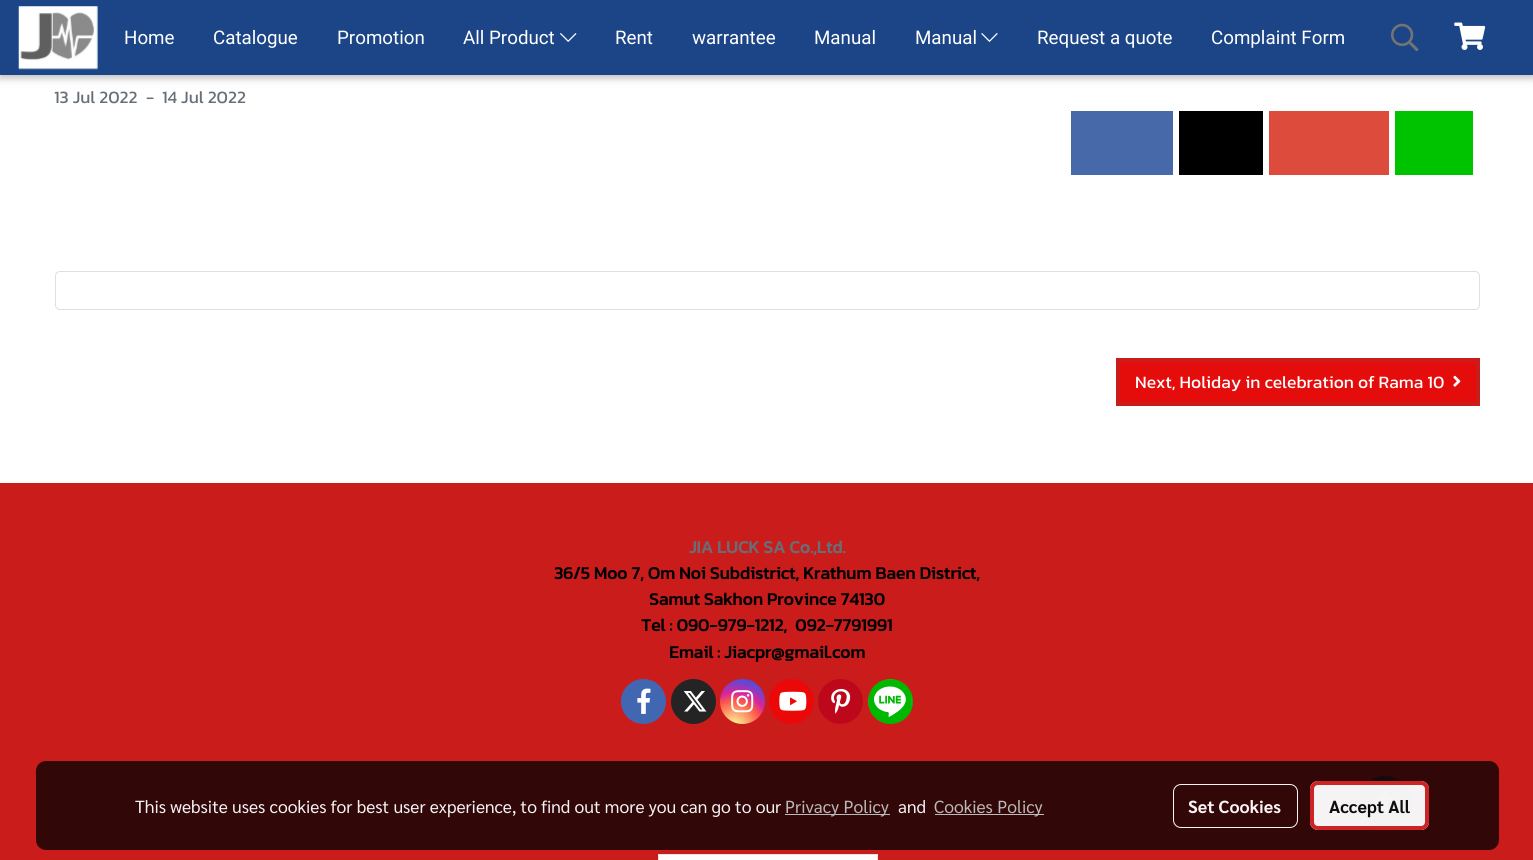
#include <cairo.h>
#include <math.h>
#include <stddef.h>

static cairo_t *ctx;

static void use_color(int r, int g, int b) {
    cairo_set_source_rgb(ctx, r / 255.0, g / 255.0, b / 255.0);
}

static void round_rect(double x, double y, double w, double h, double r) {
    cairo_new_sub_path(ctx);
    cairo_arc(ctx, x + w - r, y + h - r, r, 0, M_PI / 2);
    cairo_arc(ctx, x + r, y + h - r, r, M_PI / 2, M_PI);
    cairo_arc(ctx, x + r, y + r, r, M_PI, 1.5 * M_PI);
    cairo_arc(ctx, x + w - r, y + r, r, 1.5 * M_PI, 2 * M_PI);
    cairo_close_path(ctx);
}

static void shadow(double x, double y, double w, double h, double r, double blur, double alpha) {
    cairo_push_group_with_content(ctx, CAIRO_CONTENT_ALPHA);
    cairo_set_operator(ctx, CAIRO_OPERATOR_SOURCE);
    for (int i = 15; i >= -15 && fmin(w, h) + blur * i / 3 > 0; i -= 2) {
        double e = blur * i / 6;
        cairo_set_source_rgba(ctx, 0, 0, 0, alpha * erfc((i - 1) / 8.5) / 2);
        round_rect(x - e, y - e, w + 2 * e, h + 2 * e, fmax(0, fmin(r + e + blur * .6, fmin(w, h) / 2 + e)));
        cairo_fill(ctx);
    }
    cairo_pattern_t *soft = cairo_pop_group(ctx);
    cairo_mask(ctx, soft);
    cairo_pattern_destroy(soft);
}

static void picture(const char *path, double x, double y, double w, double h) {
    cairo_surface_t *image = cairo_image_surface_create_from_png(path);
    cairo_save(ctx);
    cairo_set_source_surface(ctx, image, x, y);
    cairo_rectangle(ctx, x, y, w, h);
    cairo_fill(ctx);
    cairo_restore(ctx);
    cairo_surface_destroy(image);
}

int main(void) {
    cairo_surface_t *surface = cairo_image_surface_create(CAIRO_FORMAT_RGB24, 1533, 860);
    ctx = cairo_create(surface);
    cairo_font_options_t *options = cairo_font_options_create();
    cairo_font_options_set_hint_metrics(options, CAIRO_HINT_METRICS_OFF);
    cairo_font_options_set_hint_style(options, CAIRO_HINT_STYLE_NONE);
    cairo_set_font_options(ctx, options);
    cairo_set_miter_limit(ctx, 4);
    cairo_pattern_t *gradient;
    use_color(255, 255, 255);
    cairo_paint(ctx);
    use_color(0, 0, 0);
    shadow(0, 3, 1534, 75, 0, 6, 0.12);
    shadow(0, 3, 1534, 75, 0, 3, 0.16);
    use_color(28, 69, 135);
    cairo_rectangle(ctx, 0, 0, 1533, 75);
    cairo_fill(ctx);
    picture("img1.png", 18, 6, 80, 64);
    cairo_select_font_face(ctx, "Roboto", CAIRO_FONT_SLANT_NORMAL, CAIRO_FONT_WEIGHT_NORMAL);
    cairo_set_font_size(ctx, 18.75);
    use_color(255, 255, 255);
    cairo_move_to(ctx, 124, 44);
    cairo_show_text(ctx, "Home");
    cairo_move_to(ctx, 213, 44);
    cairo_show_text(ctx, "Catalogue");
    cairo_move_to(ctx, 337, 44);
    cairo_show_text(ctx, "Promotion");
    cairo_move_to(ctx, 463, 44);
    cairo_show_text(ctx, "All Product");
    picture("img2.png", 560, 33, 17, 9);
    cairo_move_to(ctx, 615, 44);
    cairo_show_text(ctx, "Rent");
    cairo_move_to(ctx, 692, 44);
    cairo_show_text(ctx, "warrantee");
    cairo_move_to(ctx, 814, 44);
    cairo_show_text(ctx, "Manual");
    cairo_move_to(ctx, 915, 44);
    cairo_show_text(ctx, "Manual");
    picture("img3.png", 981, 33, 17, 9);
    cairo_move_to(ctx, 1037, 44);
    cairo_show_text(ctx, "Request a quote");
    cairo_move_to(ctx, 1211, 44);
    cairo_show_text(ctx, "Complaint Form");
    picture("img4.png", 1391, 23, 28, 29);
    picture("img5.png", 1454, 22, 32, 28);
    cairo_select_font_face(ctx, "Kanit", CAIRO_FONT_SLANT_NORMAL, CAIRO_FONT_WEIGHT_NORMAL);
    cairo_set_font_size(ctx, 17.5);
    use_color(102, 111, 120);
    cairo_move_to(ctx, 54, 103);
    cairo_show_text(ctx, "13 Jul 2022");
    cairo_move_to(ctx, 146, 103);
    cairo_show_text(ctx, "-");
    cairo_move_to(ctx, 162, 103);
    cairo_show_text(ctx, "14 Jul 2022");
    use_color(71, 105, 169);
    cairo_rectangle(ctx, 1071, 111, 102, 64);
    cairo_fill(ctx);
    use_color(0, 0, 0);
    cairo_rectangle(ctx, 1179, 111, 84, 64);
    cairo_fill(ctx);
    use_color(221, 75, 60);
    cairo_rectangle(ctx, 1269, 111, 120, 64);
    cairo_fill(ctx);
    use_color(0, 195, 0);
    cairo_rectangle(ctx, 1395, 111, 78, 64);
    cairo_fill(ctx);
    round_rect(55.5, 271.5, 1424, 38, 4.5);
    use_color(223, 223, 223);
    cairo_set_line_width(ctx, 1);
    cairo_stroke(ctx);
    use_color(229, 12, 12);
    cairo_rectangle(ctx, 1118, 360, 360, 44);
    cairo_fill_preserve(ctx);
    use_color(203, 28, 28);
    cairo_set_line_width(ctx, 4);
    cairo_stroke(ctx);
    use_color(255, 255, 255);
    cairo_move_to(ctx, 1135, 388);
    cairo_show_text(ctx, "Next, Holiday in celebration of Rama 10");
    picture("img6.png", 1453, 375, 8, 12);
    use_color(203, 28, 28);
    cairo_rectangle(ctx, 0, 483, 1533, 377);
    cairo_fill(ctx);
    cairo_select_font_face(ctx, "Kanit", CAIRO_FONT_SLANT_NORMAL, CAIRO_FONT_WEIGHT_BOLD);
    use_color(102, 111, 120);
    cairo_move_to(ctx, 689, 553);
    cairo_show_text(ctx, "JIA LUCK SA Co.,Ltd.");
    use_color(0, 0, 0);
    cairo_move_to(ctx, 554, 579);
    cairo_show_text(ctx, "36/5 Moo 7, Om Noi Subdistrict, Krathum Baen District,");
    cairo_move_to(ctx, 649, 605);
    cairo_show_text(ctx, "Samut Sakhon Province 74130");
    cairo_move_to(ctx, 641, 631);
    cairo_show_text(ctx, "Tel : 090-979-1212,  092-7791991");
    cairo_move_to(ctx, 669, 658);
    cairo_show_text(ctx, "Email : Jiacpr@gmail.com");
    use_color(66, 103, 178);
    cairo_new_path(ctx);
    cairo_arc(ctx, 643.5, 701.5, 22.5, 0, 2 * M_PI);
    cairo_fill(ctx);
    picture("img7.png", 637, 688, 14, 26);
    use_color(36, 36, 36);
    cairo_arc(ctx, 693.5, 701.5, 22.5, 0, 2 * M_PI);
    cairo_fill(ctx);
    picture("img8.png", 683, 691, 24, 21);
    gradient = cairo_pattern_create_radial(734, 727, 0, 734, 727, 58);
    cairo_pattern_add_color_stop_rgba(gradient, 0, 0.992, 0.957, 0.592, 1);
    cairo_pattern_add_color_stop_rgba(gradient, 0.05, 0.992, 0.957, 0.592, 1);
    cairo_pattern_add_color_stop_rgba(gradient, 0.45, 0.992, 0.349, 0.286, 1);
    cairo_pattern_add_color_stop_rgba(gradient, 0.6, 0.839, 0.141, 0.624, 1);
    cairo_pattern_add_color_stop_rgba(gradient, 0.9, 0.157, 0.353, 0.922, 1);
    cairo_set_source(ctx, gradient);
    cairo_pattern_destroy(gradient);
    cairo_arc(ctx, 742.5, 701.5, 22.5, 0, 2 * M_PI);
    cairo_fill(ctx);
    picture("img9.png", 731, 690, 23, 23);
    use_color(235, 8, 8);
    cairo_arc(ctx, 791.5, 701.5, 22.5, 0, 2 * M_PI);
    cairo_fill(ctx);
    picture("img10.png", 779, 691, 28, 20);
    use_color(189, 8, 28);
    cairo_arc(ctx, 840.5, 701.5, 22.5, 0, 2 * M_PI);
    cairo_fill(ctx);
    picture("img11.png", 831, 688, 20, 26);
    use_color(0, 184, 0);
    cairo_arc(ctx, 890.5, 701.5, 22.5, 0, 2 * M_PI);
    cairo_fill(ctx);
    picture("img12.png", 868, 679, 44, 38);
    use_color(255, 255, 255);
    cairo_rectangle(ctx, 658.5, 854.5, 219, 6);
    cairo_fill_preserve(ctx);
    use_color(229, 229, 229);
    cairo_set_line_width(ctx, 1);
    cairo_stroke(ctx);
    use_color(91, 38, 38);
    cairo_new_path(ctx);
    cairo_move_to(ctx, 1385, 776);
    cairo_curve_to(ctx, 1370, 776, 1358, 788, 1358, 802);
    cairo_curve_to(ctx, 1358, 817, 1370, 829, 1385, 829);
    cairo_curve_to(ctx, 1400, 829, 1412, 817, 1412, 802);
    cairo_curve_to(ctx, 1412, 788, 1400, 776, 1385, 776);
    cairo_close_path(ctx);
    cairo_fill(ctx);
    picture("img13.png", 1373, 790, 24, 25);
    cairo_set_source_rgba(ctx, 0, 0, 0, 0.76);
    round_rect(36, 761, 1463, 89, 10);
    cairo_fill(ctx);
    cairo_select_font_face(ctx, "Sarabun", CAIRO_FONT_SLANT_NORMAL, CAIRO_FONT_WEIGHT_NORMAL);
    use_color(245, 243, 243);
    cairo_move_to(ctx, 135, 813);
    cairo_show_text(ctx, "This website uses cookies for best user experience, to find out more you can go to our");
    cairo_set_source_rgba(ctx, 0.761, 0.761, 0.761, 0.95);
    cairo_rectangle(ctx, 785, 814, 105, 1);
    cairo_fill(ctx);
    use_color(187, 185, 185);
    cairo_move_to(ctx, 785, 813);
    cairo_show_text(ctx, "Privacy Policy");
    use_color(245, 243, 243);
    cairo_move_to(ctx, 898, 813);
    cairo_show_text(ctx, "and");
    use_color(194, 186, 186);
    cairo_rectangle(ctx, 935, 814, 109, 1);
    cairo_fill(ctx);
    use_color(187, 185, 185);
    cairo_move_to(ctx, 934, 813);
    cairo_show_text(ctx, "Cookies Policy");
    round_rect(1173.5, 784.5, 124, 43, 7.5);
    use_color(252, 244, 244);
    cairo_stroke(ctx);
    cairo_select_font_face(ctx, "Sarabun", CAIRO_FONT_SLANT_NORMAL, CAIRO_FONT_WEIGHT_BOLD);
    cairo_move_to(ctx, 1188, 813);
    cairo_show_text(ctx, "Set Cookies");
    cairo_set_source_rgba(ctx, 1, 1, 1, 0.95);
    round_rect(1310, 781, 119, 49, 8);
    cairo_fill(ctx);
    round_rect(1312, 783, 115, 45, 6);
    cairo_set_source_rgba(ctx, 0.796, 0.11, 0.11, 0.95);
    cairo_set_line_width(ctx, 4);
    cairo_stroke(ctx);
    use_color(12, 12, 12);
    cairo_move_to(ctx, 1329, 813);
    cairo_show_text(ctx, "Accept All");
    cairo_surface_write_to_png(surface, "result.png");
    cairo_font_options_destroy(options);
    cairo_destroy(ctx);
    cairo_surface_destroy(surface);
    return 0;
}
